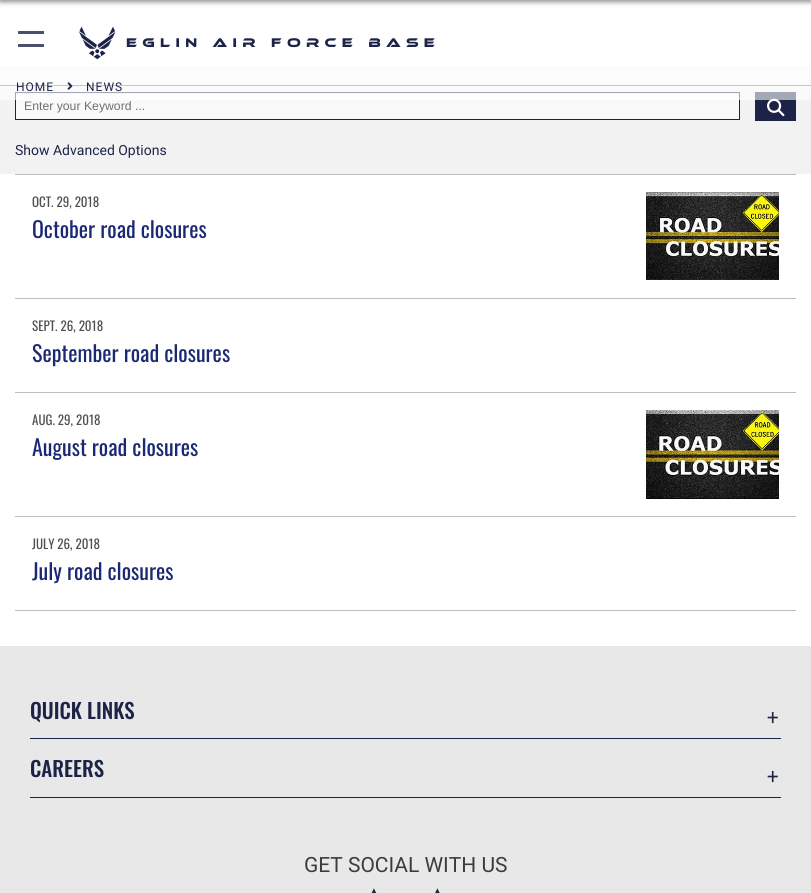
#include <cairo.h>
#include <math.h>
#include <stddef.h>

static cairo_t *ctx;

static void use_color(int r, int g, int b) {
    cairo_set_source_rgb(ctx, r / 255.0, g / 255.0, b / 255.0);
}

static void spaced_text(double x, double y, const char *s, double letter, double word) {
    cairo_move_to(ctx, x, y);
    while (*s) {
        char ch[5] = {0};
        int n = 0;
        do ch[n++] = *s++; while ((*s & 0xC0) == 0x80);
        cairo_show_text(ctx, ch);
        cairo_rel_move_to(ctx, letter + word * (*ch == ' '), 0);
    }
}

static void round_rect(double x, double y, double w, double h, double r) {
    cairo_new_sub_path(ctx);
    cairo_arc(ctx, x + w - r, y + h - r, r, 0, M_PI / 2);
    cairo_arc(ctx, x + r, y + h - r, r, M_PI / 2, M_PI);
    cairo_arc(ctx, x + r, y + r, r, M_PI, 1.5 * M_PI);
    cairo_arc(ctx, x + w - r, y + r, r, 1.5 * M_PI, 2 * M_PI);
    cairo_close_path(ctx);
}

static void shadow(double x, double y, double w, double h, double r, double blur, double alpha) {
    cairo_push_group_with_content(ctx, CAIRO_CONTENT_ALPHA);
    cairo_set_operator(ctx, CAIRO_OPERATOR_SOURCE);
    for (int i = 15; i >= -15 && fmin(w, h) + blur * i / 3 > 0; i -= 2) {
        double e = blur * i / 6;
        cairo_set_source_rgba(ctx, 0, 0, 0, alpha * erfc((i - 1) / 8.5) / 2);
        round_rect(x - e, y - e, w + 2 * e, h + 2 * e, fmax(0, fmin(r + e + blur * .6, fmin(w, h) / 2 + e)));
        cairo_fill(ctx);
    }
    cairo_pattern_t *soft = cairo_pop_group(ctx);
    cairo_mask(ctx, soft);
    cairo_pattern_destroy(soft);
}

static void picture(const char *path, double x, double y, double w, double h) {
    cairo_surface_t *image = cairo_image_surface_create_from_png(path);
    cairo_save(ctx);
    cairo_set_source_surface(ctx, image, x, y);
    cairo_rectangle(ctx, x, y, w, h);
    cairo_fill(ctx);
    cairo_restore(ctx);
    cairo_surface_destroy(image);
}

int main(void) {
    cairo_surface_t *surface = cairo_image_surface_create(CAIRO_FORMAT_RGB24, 811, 893);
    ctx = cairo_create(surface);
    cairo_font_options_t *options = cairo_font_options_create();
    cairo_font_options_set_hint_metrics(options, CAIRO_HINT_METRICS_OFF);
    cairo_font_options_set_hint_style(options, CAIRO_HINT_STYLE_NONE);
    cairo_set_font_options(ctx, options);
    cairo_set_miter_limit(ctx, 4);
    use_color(255, 255, 255);
    cairo_paint(ctx);
    use_color(26, 26, 26);
    shadow(0, -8, 811, 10, 0, 2.5, 0.5);
    use_color(112, 112, 112);
    cairo_rectangle(ctx, 0, 85, 811, 1);
    cairo_fill(ctx);
    use_color(73, 80, 109);
    round_rect(18, 31, 26, 3, 0.5);
    cairo_fill(ctx);
    round_rect(18, 44, 26, 3, 0.5);
    cairo_fill(ctx);
    picture("img1.png", 79, 26, 37, 34);
    cairo_select_font_face(ctx, "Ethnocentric", CAIRO_FONT_SLANT_NORMAL, CAIRO_FONT_WEIGHT_NORMAL);
    cairo_set_font_size(ctx, 13);
    use_color(28, 35, 71);
    spaced_text(126, 47, "Eglin Air Force Base", 5.25, 0);
    use_color(242, 242, 242);
    cairo_rectangle(ctx, 0, 86, 811, 88);
    cairo_fill(ctx);
    use_color(249, 249, 249);
    cairo_rectangle(ctx, 16, 94, 723, 25);
    cairo_fill(ctx);
    use_color(230, 230, 230);
    cairo_rectangle(ctx, 16, 93, 723, 1);
    cairo_fill(ctx);
    cairo_rectangle(ctx, 15.5, 92.5, 724, 27);
    use_color(28, 35, 71);
    cairo_set_line_width(ctx, 1);
    cairo_stroke(ctx);
    cairo_rectangle(ctx, 755, 92, 41, 29);
    cairo_fill(ctx);
    picture("img3.png", 767, 98, 18, 19);
    cairo_set_source_rgba(ctx, 1, 1, 1, 0.6);
    cairo_rectangle(ctx, 0, 85, 811, 15);
    cairo_fill(ctx);
    use_color(252, 252, 252);
    cairo_rectangle(ctx, 0, 66, 811, 19);
    cairo_fill(ctx);
    cairo_select_font_face(ctx, "Roboto", CAIRO_FONT_SLANT_NORMAL, CAIRO_FONT_WEIGHT_NORMAL);
    cairo_set_font_size(ctx, 12);
    use_color(28, 35, 71);
    spaced_text(16, 91, "HOME", 1, 0);
    picture("img2.png", 67, 82, 6, 8);
    spaced_text(86, 91, "NEWS", 1, 0);
    cairo_select_font_face(ctx, "Liberation Sans", CAIRO_FONT_SLANT_NORMAL, CAIRO_FONT_WEIGHT_NORMAL);
    cairo_set_font_size(ctx, 12.25);
    use_color(112, 112, 112);
    cairo_move_to(ctx, 24, 110);
    cairo_show_text(ctx, "Enter your Keyword ...");
    cairo_select_font_face(ctx, "Roboto", CAIRO_FONT_SLANT_NORMAL, CAIRO_FONT_WEIGHT_NORMAL);
    cairo_set_font_size(ctx, 14);
    use_color(28, 35, 71);
    cairo_move_to(ctx, 15, 155);
    cairo_show_text(ctx, "Show Advanced Options");
    use_color(193, 189, 189);
    cairo_rectangle(ctx, 15, 174, 781, 1);
    cairo_fill(ctx);
    cairo_select_font_face(ctx, "Oswald", CAIRO_FONT_SLANT_NORMAL, CAIRO_FONT_WEIGHT_NORMAL);
    cairo_set_font_size(ctx, 13);
    use_color(80, 80, 80);
    cairo_move_to(ctx, 32, 207);
    cairo_show_text(ctx, "OCT. 29, 2018");
    cairo_set_font_size(ctx, 22);
    use_color(27, 41, 116);
    cairo_move_to(ctx, 32, 238);
    cairo_show_text(ctx, "October road closures");
    picture("img4.png", 646, 192, 133, 88);
    use_color(193, 189, 189);
    cairo_rectangle(ctx, 15, 298, 781, 1);
    cairo_fill(ctx);
    cairo_set_font_size(ctx, 13);
    use_color(80, 80, 80);
    cairo_move_to(ctx, 32, 331);
    cairo_show_text(ctx, "SEPT. 26, 2018");
    cairo_set_font_size(ctx, 22);
    use_color(27, 41, 116);
    cairo_move_to(ctx, 32, 362);
    cairo_show_text(ctx, "September road closures");
    use_color(193, 189, 189);
    cairo_rectangle(ctx, 15, 392, 781, 1);
    cairo_fill(ctx);
    cairo_set_font_size(ctx, 13);
    use_color(80, 80, 80);
    cairo_move_to(ctx, 32, 425);
    cairo_show_text(ctx, "AUG. 29, 2018");
    cairo_set_font_size(ctx, 22);
    use_color(27, 41, 116);
    cairo_move_to(ctx, 32, 456);
    cairo_show_text(ctx, "August road closures");
    picture("img5.png", 646, 410, 133, 89);
    use_color(193, 189, 189);
    cairo_rectangle(ctx, 15, 516, 781, 1);
    cairo_fill(ctx);
    cairo_rectangle(ctx, 15, 610, 781, 1);
    cairo_fill(ctx);
    cairo_set_font_size(ctx, 13);
    use_color(80, 80, 80);
    cairo_move_to(ctx, 32, 549);
    cairo_show_text(ctx, "JULY 26, 2018");
    cairo_set_font_size(ctx, 22);
    use_color(27, 41, 116);
    cairo_move_to(ctx, 32, 580);
    cairo_show_text(ctx, "July road closures");
    use_color(232, 232, 232);
    cairo_rectangle(ctx, 0, 646, 811, 247);
    cairo_fill(ctx);
    use_color(28, 36, 73);
    cairo_rectangle(ctx, 30, 738, 751, 1);
    cairo_fill(ctx);
    cairo_select_font_face(ctx, "Oswald Medium", CAIRO_FONT_SLANT_NORMAL, CAIRO_FONT_WEIGHT_NORMAL);
    cairo_set_font_size(ctx, 21);
    use_color(28, 35, 71);
    cairo_move_to(ctx, 30, 719);
    cairo_show_text(ctx, "QUICK LINKS");
    cairo_select_font_face(ctx, "Oswald Light", CAIRO_FONT_SLANT_NORMAL, CAIRO_FONT_WEIGHT_NORMAL);
    cairo_set_font_size(ctx, 30);
    cairo_move_to(ctx, 767, 730);
    cairo_show_text(ctx, "+");
    use_color(28, 36, 73);
    cairo_rectangle(ctx, 30, 797, 751, 1);
    cairo_fill(ctx);
    cairo_select_font_face(ctx, "Oswald Medium", CAIRO_FONT_SLANT_NORMAL, CAIRO_FONT_WEIGHT_NORMAL);
    cairo_set_font_size(ctx, 21);
    use_color(28, 35, 71);
    cairo_move_to(ctx, 30, 777);
    cairo_show_text(ctx, "CAREERS");
    cairo_select_font_face(ctx, "Oswald Light", CAIRO_FONT_SLANT_NORMAL, CAIRO_FONT_WEIGHT_NORMAL);
    cairo_set_font_size(ctx, 30);
    cairo_move_to(ctx, 767, 789);
    cairo_show_text(ctx, "+");
    cairo_select_font_face(ctx, "Roboto", CAIRO_FONT_SLANT_NORMAL, CAIRO_FONT_WEIGHT_NORMAL);
    cairo_set_font_size(ctx, 21);
    use_color(61, 60, 60);
    cairo_move_to(ctx, 304, 872);
    cairo_show_text(ctx, "GET SOCIAL WITH US");
    picture("img6.png", 371, 888, 69, 5);
    cairo_surface_write_to_png(surface, "result.png");
    cairo_font_options_destroy(options);
    cairo_destroy(ctx);
    cairo_surface_destroy(surface);
    return 0;
}
